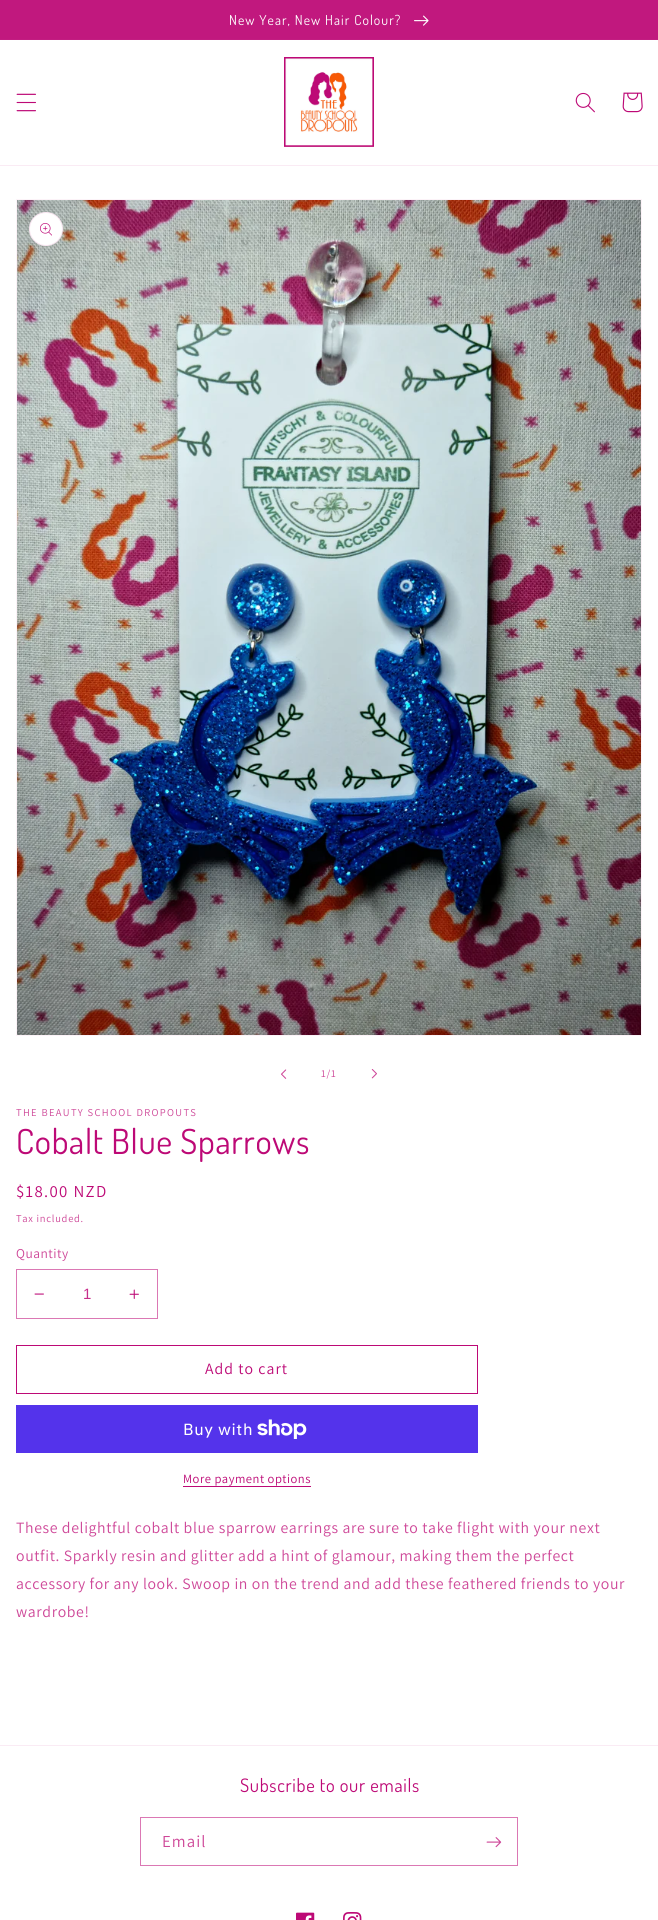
#include <cairo.h>
#include <math.h>
#include <stddef.h>

static cairo_t *ctx;

static void use_color(int r, int g, int b) {
    cairo_set_source_rgb(ctx, r / 255.0, g / 255.0, b / 255.0);
}

static void spaced_text(double x, double y, const char *s, double letter, double word) {
    cairo_move_to(ctx, x, y);
    while (*s) {
        char ch[5] = {0};
        int n = 0;
        do ch[n++] = *s++; while ((*s & 0xC0) == 0x80);
        cairo_show_text(ctx, ch);
        cairo_rel_move_to(ctx, letter + word * (*ch == ' '), 0);
    }
}

static void picture(const char *path, double x, double y, double w, double h) {
    cairo_surface_t *image = cairo_image_surface_create_from_png(path);
    cairo_save(ctx);
    cairo_set_source_surface(ctx, image, x, y);
    cairo_rectangle(ctx, x, y, w, h);
    cairo_fill(ctx);
    cairo_restore(ctx);
    cairo_surface_destroy(image);
}

int main(void) {
    cairo_surface_t *surface = cairo_image_surface_create(CAIRO_FORMAT_RGB24, 658, 1920);
    ctx = cairo_create(surface);
    cairo_font_options_t *options = cairo_font_options_create();
    cairo_font_options_set_hint_metrics(options, CAIRO_HINT_METRICS_OFF);
    cairo_font_options_set_hint_style(options, CAIRO_HINT_STYLE_NONE);
    cairo_set_font_options(ctx, options);
    cairo_set_miter_limit(ctx, 4);
    use_color(255, 255, 255);
    cairo_paint(ctx);
    use_color(194, 29, 129);
    cairo_rectangle(ctx, 0, 39, 658, 1);
    cairo_fill(ctx);
    use_color(193, 24, 126);
    cairo_rectangle(ctx, 0, 0, 658, 39);
    cairo_fill(ctx);
    cairo_select_font_face(ctx, "Dosis", CAIRO_FONT_SLANT_NORMAL, CAIRO_FONT_WEIGHT_NORMAL);
    cairo_set_font_size(ctx, 13.75);
    use_color(255, 255, 255);
    spaced_text(229, 25, "New Year, New Hair Colour?", 1.05, 0);
    picture("img1.png", 414, 15, 15, 11);
    use_color(250, 235, 244);
    cairo_rectangle(ctx, 0, 165, 658, 1);
    cairo_fill(ctx);
    picture("img2.png", 16, 93, 20, 19);
    picture("img3.png", 284, 57, 90, 90);
    picture("img4.png", 575, 92, 20, 21);
    picture("img5.png", 622, 92, 21, 21);
    cairo_rectangle(ctx, 16.5, 199.5, 625, 836);
    use_color(252, 243, 248);
    cairo_set_line_width(ctx, 1);
    cairo_stroke(ctx);
    picture("img6.png", 17, 200, 624, 835);
    use_color(255, 255, 255);
    cairo_arc(ctx, 46, 229, 17, 0, 2 * M_PI);
    cairo_fill(ctx);
    cairo_arc(ctx, 46, 229, 16.5, 0, 2 * M_PI);
    cairo_set_source_rgba(ctx, 0.741, 0.035, 0.463, 0.1);
    cairo_stroke(ctx);
    picture("img7.png", 40, 223, 12, 13);
    picture("img8.png", 281, 1069, 6, 10);
    cairo_select_font_face(ctx, "Assistant", CAIRO_FONT_SLANT_NORMAL, CAIRO_FONT_WEIGHT_NORMAL);
    cairo_set_font_size(ctx, 10.5);
    use_color(206, 71, 152);
    spaced_text(321, 1077, "1/1", 0.75, 0);
    picture("img9.png", 371, 1069, 6, 10);
    spaced_text(16, 1116, "THE BEAUTY SCHOOL DROPOUTS", 1.35, 0);
    cairo_select_font_face(ctx, "Dosis", CAIRO_FONT_SLANT_NORMAL, CAIRO_FONT_WEIGHT_NORMAL);
    cairo_set_font_size(ctx, 34.5);
    use_color(189, 9, 118);
    spaced_text(16, 1154, "Cobalt Blue Sparrows", 0.7, 0);
    cairo_select_font_face(ctx, "Assistant", CAIRO_FONT_SLANT_NORMAL, CAIRO_FONT_WEIGHT_NORMAL);
    cairo_set_font_size(ctx, 16.75);
    spaced_text(16, 1197, "$18.00 NZD", 1.35, 0);
    cairo_set_font_size(ctx, 10.5);
    use_color(206, 71, 152);
    spaced_text(16, 1222, "Tax included.", 0.75, 0);
    cairo_set_font_size(ctx, 13.5);
    spaced_text(16, 1258, "Quantity", 0.5, 0);
    picture("img10.png", 34, 1293, 10, 2);
    picture("img11.png", 129, 1289, 10, 10);
    cairo_rectangle(ctx, 16.5, 1269.5, 141, 49);
    use_color(219, 120, 180);
    cairo_stroke(ctx);
    cairo_select_font_face(ctx, "Liberation Sans", CAIRO_FONT_SLANT_NORMAL, CAIRO_FONT_WEIGHT_NORMAL);
    cairo_set_font_size(ctx, 15);
    use_color(199, 46, 139);
    cairo_move_to(ctx, 83, 1299);
    cairo_show_text(ctx, "1");
    cairo_rectangle(ctx, 16.5, 1345.5, 461, 48);
    use_color(189, 9, 118);
    cairo_stroke(ctx);
    cairo_select_font_face(ctx, "Assistant", CAIRO_FONT_SLANT_NORMAL, CAIRO_FONT_WEIGHT_NORMAL);
    cairo_set_font_size(ctx, 15.75);
    spaced_text(205, 1374, "Add to cart", 1.05, 0);
    use_color(84, 51, 235);
    cairo_rectangle(ctx, 16, 1405, 462, 48);
    cairo_fill(ctx);
    cairo_select_font_face(ctx, "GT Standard", CAIRO_FONT_SLANT_NORMAL, CAIRO_FONT_WEIGHT_NORMAL);
    cairo_set_font_size(ctx, 16);
    use_color(255, 255, 255);
    spaced_text(183, 1435, "Buy with", 0.63, 0);
    picture("img12.png", 257, 1419, 50, 20);
    cairo_select_font_face(ctx, "Assistant", CAIRO_FONT_SLANT_NORMAL, CAIRO_FONT_WEIGHT_NORMAL);
    cairo_set_font_size(ctx, 12.6);
    use_color(189, 9, 118);
    spaced_text(183, 1483, "More payment options", 0.5, 0);
    cairo_rectangle(ctx, 183, 1486, 128, 1);
    cairo_fill(ctx);
    cairo_set_font_size(ctx, 15.75);
    use_color(206, 71, 152);
    spaced_text(16, 1533, "These delightful cobalt blue sparrow earrings are sure to take flight with your next", 0.63, 0);
    spaced_text(16, 1561, "outfit. Sparkly resin and glitter add a hint of glamour, making them the perfect", 0.63, 0);
    spaced_text(16, 1589, "accessory for any look. Swoop in on the trend and add these feathered friends to your", 0.63, 0);
    spaced_text(16, 1617, "wardrobe!", 0.63, 0);
    use_color(250, 235, 244);
    cairo_rectangle(ctx, 0, 1745, 658, 1);
    cairo_fill(ctx);
    cairo_select_font_face(ctx, "Dosis", CAIRO_FONT_SLANT_NORMAL, CAIRO_FONT_WEIGHT_NORMAL);
    cairo_set_font_size(ctx, 18.5);
    use_color(189, 9, 118);
    spaced_text(240, 1792, "Subscribe to our emails", 0.7, 0);
    cairo_rectangle(ctx, 140.5, 1817.5, 377, 48);
    use_color(219, 120, 180);
    cairo_stroke(ctx);
    cairo_select_font_face(ctx, "Assistant", CAIRO_FONT_SLANT_NORMAL, CAIRO_FONT_WEIGHT_NORMAL);
    cairo_set_font_size(ctx, 16.75);
    use_color(206, 71, 152);
    spaced_text(162, 1847, "Email", 1.05, 0);
    picture("img13.png", 486, 1837, 16, 11);
    picture("img14.png", 296, 1912, 19, 8);
    picture("img15.png", 343, 1912, 19, 8);
    cairo_surface_write_to_png(surface, "result.png");
    cairo_font_options_destroy(options);
    cairo_destroy(ctx);
    cairo_surface_destroy(surface);
    return 0;
}
